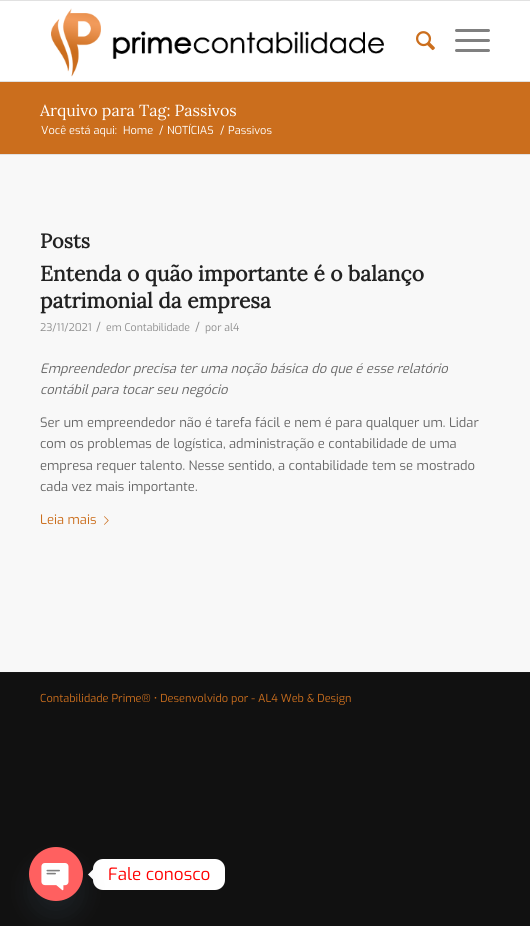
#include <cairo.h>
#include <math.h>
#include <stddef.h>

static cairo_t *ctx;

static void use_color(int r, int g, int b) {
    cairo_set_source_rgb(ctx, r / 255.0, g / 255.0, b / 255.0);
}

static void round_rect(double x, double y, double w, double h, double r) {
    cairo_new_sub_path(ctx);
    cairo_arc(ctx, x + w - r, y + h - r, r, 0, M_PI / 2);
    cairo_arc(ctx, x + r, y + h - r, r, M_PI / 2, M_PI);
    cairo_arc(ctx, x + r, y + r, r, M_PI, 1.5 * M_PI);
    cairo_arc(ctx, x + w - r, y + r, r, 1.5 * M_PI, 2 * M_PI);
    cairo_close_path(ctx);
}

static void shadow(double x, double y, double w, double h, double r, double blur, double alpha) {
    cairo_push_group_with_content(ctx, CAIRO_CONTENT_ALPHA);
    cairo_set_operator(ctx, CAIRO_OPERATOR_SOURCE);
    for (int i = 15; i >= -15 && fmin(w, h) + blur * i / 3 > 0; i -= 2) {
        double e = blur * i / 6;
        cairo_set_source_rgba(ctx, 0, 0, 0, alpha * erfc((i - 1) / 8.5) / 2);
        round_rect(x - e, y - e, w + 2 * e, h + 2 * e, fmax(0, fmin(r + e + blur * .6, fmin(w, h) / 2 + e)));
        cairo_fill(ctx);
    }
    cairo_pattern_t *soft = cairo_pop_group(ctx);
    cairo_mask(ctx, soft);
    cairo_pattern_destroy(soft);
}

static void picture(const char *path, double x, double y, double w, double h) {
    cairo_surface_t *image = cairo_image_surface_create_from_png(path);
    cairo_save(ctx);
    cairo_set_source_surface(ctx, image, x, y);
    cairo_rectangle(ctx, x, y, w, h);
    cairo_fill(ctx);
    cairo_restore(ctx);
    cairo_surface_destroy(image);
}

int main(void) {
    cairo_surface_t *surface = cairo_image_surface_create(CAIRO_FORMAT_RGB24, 530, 926);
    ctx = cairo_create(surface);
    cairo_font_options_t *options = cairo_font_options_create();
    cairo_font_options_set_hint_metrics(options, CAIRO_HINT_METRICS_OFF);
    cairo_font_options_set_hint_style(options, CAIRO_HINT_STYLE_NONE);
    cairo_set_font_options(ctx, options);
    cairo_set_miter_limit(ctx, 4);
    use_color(17, 17, 17);
    cairo_paint(ctx);
    use_color(225, 225, 225);
    cairo_rectangle(ctx, 0, 0, 530, 1);
    cairo_fill(ctx);
    cairo_rectangle(ctx, 0, 81, 530, 1);
    cairo_fill(ctx);
    use_color(255, 255, 255);
    cairo_rectangle(ctx, 0, 1, 530, 80);
    cairo_fill(ctx);
    picture("img1.png", 51, 8, 333, 69);
    picture("img2.png", 416, 31, 19, 20);
    use_color(128, 128, 128);
    round_rect(455, 39, 35, 3, 1.5);
    cairo_fill(ctx);
    round_rect(455, 29, 35, 3, 1.5);
    cairo_fill(ctx);
    round_rect(455, 49, 35, 3, 1.5);
    cairo_fill(ctx);
    use_color(203, 110, 29);
    cairo_rectangle(ctx, 0, 82, 530, 72);
    cairo_fill(ctx);
    cairo_select_font_face(ctx, "Lora", CAIRO_FONT_SLANT_NORMAL, CAIRO_FONT_WEIGHT_NORMAL);
    cairo_set_font_size(ctx, 16);
    use_color(255, 255, 255);
    cairo_move_to(ctx, 40, 116);
    cairo_show_text(ctx, "Arquivo para Tag: Passivos");
    cairo_select_font_face(ctx, "Exo", CAIRO_FONT_SLANT_NORMAL, CAIRO_FONT_WEIGHT_NORMAL);
    cairo_set_font_size(ctx, 11);
    cairo_move_to(ctx, 41, 134);
    cairo_show_text(ctx, "Você está aqui:");
    cairo_move_to(ctx, 123, 134);
    cairo_show_text(ctx, "Home");
    cairo_move_to(ctx, 159, 134);
    cairo_show_text(ctx, "/");
    cairo_move_to(ctx, 167, 134);
    cairo_show_text(ctx, "NOTÍCIAS");
    cairo_move_to(ctx, 220, 134);
    cairo_show_text(ctx, "/");
    cairo_move_to(ctx, 228, 134);
    cairo_show_text(ctx, "Passivos");
    use_color(248, 248, 248);
    cairo_rectangle(ctx, 0, 155, 530, 517);
    cairo_fill(ctx);
    use_color(225, 225, 225);
    cairo_rectangle(ctx, 0, 154, 530, 1);
    cairo_fill(ctx);
    cairo_select_font_face(ctx, "Lora", CAIRO_FONT_SLANT_NORMAL, CAIRO_FONT_WEIGHT_BOLD);
    cairo_set_font_size(ctx, 20);
    use_color(34, 34, 34);
    cairo_move_to(ctx, 40, 248);
    cairo_show_text(ctx, "Posts");
    cairo_set_font_size(ctx, 21);
    cairo_move_to(ctx, 40, 281);
    cairo_show_text(ctx, "Entenda o quão importante é o balanço");
    cairo_move_to(ctx, 40, 308);
    cairo_show_text(ctx, "patrimonial da empresa");
    cairo_select_font_face(ctx, "Exo", CAIRO_FONT_SLANT_NORMAL, CAIRO_FONT_WEIGHT_NORMAL);
    cairo_set_font_size(ctx, 10.5);
    use_color(141, 141, 141);
    cairo_move_to(ctx, 40, 331);
    cairo_show_text(ctx, "23/11/2021");
    cairo_set_font_size(ctx, 12);
    cairo_move_to(ctx, 96, 331);
    cairo_show_text(ctx, "/");
    cairo_set_font_size(ctx, 10.5);
    cairo_move_to(ctx, 106, 331);
    cairo_show_text(ctx, "em Contabilidade");
    cairo_set_font_size(ctx, 12);
    cairo_move_to(ctx, 195, 331);
    cairo_show_text(ctx, "/");
    cairo_set_font_size(ctx, 10.5);
    cairo_move_to(ctx, 205, 331);
    cairo_show_text(ctx, "por al4");
    cairo_select_font_face(ctx, "Exo", CAIRO_FONT_SLANT_ITALIC, CAIRO_FONT_WEIGHT_NORMAL);
    cairo_set_font_size(ctx, 13);
    use_color(102, 102, 102);
    cairo_move_to(ctx, 40, 373);
    cairo_show_text(ctx, "Empreendedor precisa ter uma noção básica do que é esse relatório");
    cairo_move_to(ctx, 40, 394);
    cairo_show_text(ctx, "contábil para tocar seu negócio");
    cairo_select_font_face(ctx, "Exo", CAIRO_FONT_SLANT_NORMAL, CAIRO_FONT_WEIGHT_NORMAL);
    cairo_move_to(ctx, 40, 427);
    cairo_show_text(ctx, "Ser um empreendedor não é tarefa fácil e nem é para qualquer um. Lidar");
    cairo_move_to(ctx, 40, 448);
    cairo_show_text(ctx, "com os problemas de logística, administração e contabilidade de uma");
    cairo_move_to(ctx, 40, 470);
    cairo_show_text(ctx, "empresa requer talento. Nesse sentido, a contabilidade tem se mostrado");
    cairo_move_to(ctx, 40, 491);
    cairo_show_text(ctx, "cada vez mais importante.");
    use_color(203, 110, 29);
    cairo_move_to(ctx, 40, 524);
    cairo_show_text(ctx, "Leia mais");
    picture("img3.png", 104, 516, 5, 9);
    use_color(22, 22, 22);
    cairo_rectangle(ctx, 0, 672, 530, 1);
    cairo_fill(ctx);
    cairo_set_font_size(ctx, 11);
    use_color(203, 110, 29);
    cairo_move_to(ctx, 40, 702);
    cairo_show_text(ctx, "Contabilidade Prime® • Desenvolvido por - AL4 Web & Design");
    use_color(255, 255, 255);
    round_rect(93, 859, 132, 31, 10);
    cairo_fill(ctx);
    cairo_new_path(ctx);
    cairo_move_to(ctx, 93, 869.5);
    cairo_line_to(ctx, 93, 879.5);
    cairo_line_to(ctx, 88, 874.5);
    cairo_close_path(ctx);
    cairo_fill(ctx);
    use_color(73, 104, 126);
    shadow(29, 863, 54, 54, 27, 12, 0.16);
    picture("img4.png", 29, 847, 54, 54);
    cairo_set_font_size(ctx, 17);
    use_color(255, 0, 0);
    cairo_move_to(ctx, 108, 880);
    cairo_show_text(ctx, "Fale conosco");
    cairo_surface_write_to_png(surface, "result.png");
    cairo_font_options_destroy(options);
    cairo_destroy(ctx);
    cairo_surface_destroy(surface);
    return 0;
}
